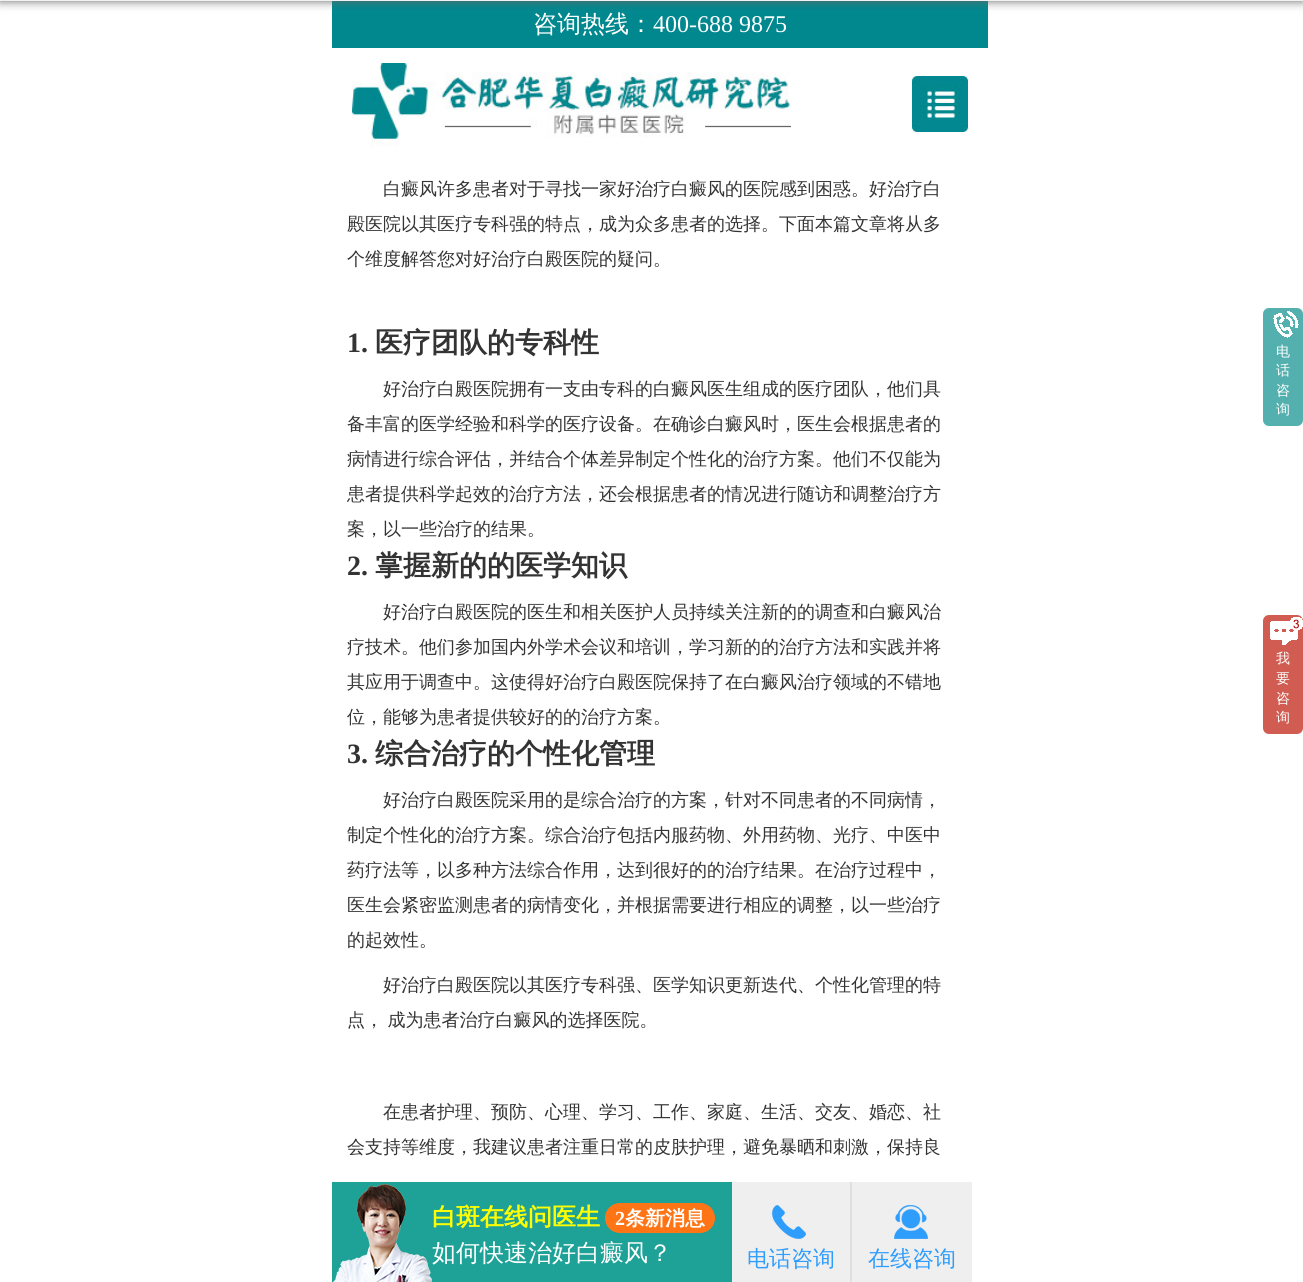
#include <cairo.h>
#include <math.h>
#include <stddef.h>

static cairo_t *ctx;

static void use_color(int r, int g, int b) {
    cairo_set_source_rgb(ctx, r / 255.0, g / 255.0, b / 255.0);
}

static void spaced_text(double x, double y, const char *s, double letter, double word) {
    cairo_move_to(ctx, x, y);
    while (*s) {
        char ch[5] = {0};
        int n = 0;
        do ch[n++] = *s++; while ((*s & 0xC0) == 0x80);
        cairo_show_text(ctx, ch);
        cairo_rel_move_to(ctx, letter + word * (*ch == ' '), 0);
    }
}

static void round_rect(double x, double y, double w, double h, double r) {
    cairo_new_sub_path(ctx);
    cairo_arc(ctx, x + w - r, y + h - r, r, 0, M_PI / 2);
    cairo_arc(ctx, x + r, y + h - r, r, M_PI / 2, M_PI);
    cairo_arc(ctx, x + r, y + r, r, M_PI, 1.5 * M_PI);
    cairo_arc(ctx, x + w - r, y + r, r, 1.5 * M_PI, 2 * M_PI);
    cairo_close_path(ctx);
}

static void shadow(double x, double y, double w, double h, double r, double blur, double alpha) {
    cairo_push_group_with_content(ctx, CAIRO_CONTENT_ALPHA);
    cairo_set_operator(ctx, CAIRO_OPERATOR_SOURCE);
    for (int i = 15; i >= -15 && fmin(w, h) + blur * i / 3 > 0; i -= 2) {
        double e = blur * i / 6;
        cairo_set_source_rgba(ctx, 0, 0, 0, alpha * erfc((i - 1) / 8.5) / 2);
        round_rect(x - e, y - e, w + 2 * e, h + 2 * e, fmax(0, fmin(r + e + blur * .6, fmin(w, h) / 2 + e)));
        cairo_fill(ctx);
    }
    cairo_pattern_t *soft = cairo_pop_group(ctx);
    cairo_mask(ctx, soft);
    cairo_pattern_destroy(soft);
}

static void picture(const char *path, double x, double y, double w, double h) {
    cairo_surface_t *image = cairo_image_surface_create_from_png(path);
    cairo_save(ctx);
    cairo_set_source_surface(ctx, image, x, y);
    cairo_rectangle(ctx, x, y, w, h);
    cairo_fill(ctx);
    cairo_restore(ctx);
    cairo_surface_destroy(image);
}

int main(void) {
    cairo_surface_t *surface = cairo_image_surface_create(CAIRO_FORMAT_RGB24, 1303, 1282);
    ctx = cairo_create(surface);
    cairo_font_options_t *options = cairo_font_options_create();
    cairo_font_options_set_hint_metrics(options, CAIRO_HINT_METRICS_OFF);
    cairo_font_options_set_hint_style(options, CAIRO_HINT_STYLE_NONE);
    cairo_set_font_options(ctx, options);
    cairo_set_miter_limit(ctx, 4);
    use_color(255, 255, 255);
    cairo_paint(ctx);
    use_color(1, 136, 143);
    cairo_rectangle(ctx, 332, 1, 656, 47);
    cairo_fill(ctx);
    use_color(102, 102, 102);
    shadow(0, -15, 1303, 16, 0, 5, 1);
    use_color(241, 241, 241);
    cairo_rectangle(ctx, 0, 0, 1303, 1);
    cairo_fill(ctx);
    cairo_select_font_face(ctx, "WenQuanYi Zen Hei Medium", CAIRO_FONT_SLANT_NORMAL, CAIRO_FONT_WEIGHT_NORMAL);
    cairo_set_font_size(ctx, 24);
    use_color(255, 255, 255);
    cairo_move_to(ctx, 533, 32);
    cairo_show_text(ctx, "咨询热线：");
    cairo_select_font_face(ctx, "Liberation Serif", CAIRO_FONT_SLANT_NORMAL, CAIRO_FONT_WEIGHT_NORMAL);
    cairo_move_to(ctx, 653, 32);
    cairo_show_text(ctx, "400-688 9875");
    picture("img1.png", 352, 63, 439, 84);
    picture("img2.png", 912, 76, 56, 56);
    cairo_select_font_face(ctx, "WenQuanYi Zen Hei Medium", CAIRO_FONT_SLANT_NORMAL, CAIRO_FONT_WEIGHT_NORMAL);
    cairo_set_font_size(ctx, 18);
    use_color(51, 51, 51);
    cairo_move_to(ctx, 383, 195);
    cairo_show_text(ctx, "白癜风许多患者对于寻找一家好治疗白癜风的医院感到困惑。好治疗白");
    cairo_move_to(ctx, 347, 230);
    cairo_show_text(ctx, "殿医院以其医疗专科强的特点，成为众多患者的选择。下面本篇文章将从多");
    cairo_move_to(ctx, 347, 265);
    cairo_show_text(ctx, "个维度解答您对好治疗白殿医院的疑问。");
    cairo_select_font_face(ctx, "Liberation Serif", CAIRO_FONT_SLANT_NORMAL, CAIRO_FONT_WEIGHT_BOLD);
    cairo_set_font_size(ctx, 28);
    cairo_move_to(ctx, 347, 352);
    cairo_show_text(ctx, "1.");
    cairo_select_font_face(ctx, "WenQuanYi Zen Hei", CAIRO_FONT_SLANT_NORMAL, CAIRO_FONT_WEIGHT_BOLD);
    cairo_move_to(ctx, 375, 352);
    cairo_show_text(ctx, "医疗团队的专科性");
    cairo_select_font_face(ctx, "WenQuanYi Zen Hei Medium", CAIRO_FONT_SLANT_NORMAL, CAIRO_FONT_WEIGHT_NORMAL);
    cairo_set_font_size(ctx, 18);
    cairo_move_to(ctx, 383, 395);
    cairo_show_text(ctx, "好治疗白殿医院拥有一支由专科的白癜风医生组成的医疗团队，他们具");
    cairo_move_to(ctx, 347, 430);
    cairo_show_text(ctx, "备丰富的医学经验和科学的医疗设备。在确诊白癜风时，医生会根据患者的");
    cairo_move_to(ctx, 347, 465);
    cairo_show_text(ctx, "病情进行综合评估，并结合个体差异制定个性化的治疗方案。他们不仅能为");
    cairo_move_to(ctx, 347, 500);
    cairo_show_text(ctx, "患者提供科学起效的治疗方法，还会根据患者的情况进行随访和调整治疗方");
    cairo_move_to(ctx, 347, 535);
    cairo_show_text(ctx, "案，以一些治疗的结果。");
    cairo_select_font_face(ctx, "Liberation Serif", CAIRO_FONT_SLANT_NORMAL, CAIRO_FONT_WEIGHT_BOLD);
    cairo_set_font_size(ctx, 28);
    cairo_move_to(ctx, 347, 575);
    cairo_show_text(ctx, "2.");
    cairo_select_font_face(ctx, "WenQuanYi Zen Hei", CAIRO_FONT_SLANT_NORMAL, CAIRO_FONT_WEIGHT_BOLD);
    cairo_move_to(ctx, 375, 575);
    cairo_show_text(ctx, "掌握新的的医学知识");
    cairo_select_font_face(ctx, "WenQuanYi Zen Hei Medium", CAIRO_FONT_SLANT_NORMAL, CAIRO_FONT_WEIGHT_NORMAL);
    cairo_set_font_size(ctx, 18);
    cairo_move_to(ctx, 383, 618);
    cairo_show_text(ctx, "好治疗白殿医院的医生和相关医护人员持续关注新的的调查和白癜风治");
    cairo_move_to(ctx, 347, 653);
    cairo_show_text(ctx, "疗技术。他们参加国内外学术会议和培训，学习新的的治疗方法和实践并将");
    cairo_move_to(ctx, 347, 688);
    cairo_show_text(ctx, "其应用于调查中。这使得好治疗白殿医院保持了在白癜风治疗领域的不错地");
    cairo_move_to(ctx, 347, 723);
    cairo_show_text(ctx, "位，能够为患者提供较好的的治疗方案。");
    cairo_select_font_face(ctx, "Liberation Serif", CAIRO_FONT_SLANT_NORMAL, CAIRO_FONT_WEIGHT_BOLD);
    cairo_set_font_size(ctx, 28);
    cairo_move_to(ctx, 347, 763);
    cairo_show_text(ctx, "3.");
    cairo_select_font_face(ctx, "WenQuanYi Zen Hei", CAIRO_FONT_SLANT_NORMAL, CAIRO_FONT_WEIGHT_BOLD);
    cairo_move_to(ctx, 375, 763);
    cairo_show_text(ctx, "综合治疗的个性化管理");
    cairo_select_font_face(ctx, "WenQuanYi Zen Hei Medium", CAIRO_FONT_SLANT_NORMAL, CAIRO_FONT_WEIGHT_NORMAL);
    cairo_set_font_size(ctx, 18);
    cairo_move_to(ctx, 383, 806);
    cairo_show_text(ctx, "好治疗白殿医院采用的是综合治疗的方案，针对不同患者的不同病情，");
    cairo_move_to(ctx, 347, 841);
    cairo_show_text(ctx, "制定个性化的治疗方案。综合治疗包括内服药物、外用药物、光疗、中医中");
    cairo_move_to(ctx, 347, 876);
    cairo_show_text(ctx, "药疗法等，以多种方法综合作用，达到很好的的治疗结果。在治疗过程中，");
    cairo_move_to(ctx, 347, 911);
    cairo_show_text(ctx, "医生会紧密监测患者的病情变化，并根据需要进行相应的调整，以一些治疗");
    cairo_move_to(ctx, 347, 946);
    cairo_show_text(ctx, "的起效性。");
    cairo_move_to(ctx, 383, 991);
    cairo_show_text(ctx, "好治疗白殿医院以其医疗专科强、医学知识更新迭代、个性化管理的特");
    spaced_text(347, 1026, "点， 成为患者治疗白癜风的选择医院。", 0, -1);
    cairo_move_to(ctx, 383, 1118);
    cairo_show_text(ctx, "在患者护理、预防、心理、学习、工作、家庭、生活、交友、婚恋、社");
    cairo_move_to(ctx, 347, 1153);
    cairo_show_text(ctx, "会支持等维度，我建议患者注重日常的皮肤护理，避免暴晒和刺激，保持良");
    use_color(84, 176, 175);
    round_rect(1263, 308, 40, 118, 6);
    cairo_fill(ctx);
    picture("img3.png", 1273, 311, 26, 27);
    cairo_set_font_size(ctx, 14);
    use_color(255, 255, 255);
    cairo_move_to(ctx, 1276, 356);
    cairo_show_text(ctx, "电");
    cairo_move_to(ctx, 1276, 375);
    cairo_show_text(ctx, "话");
    cairo_move_to(ctx, 1276, 395);
    cairo_show_text(ctx, "咨");
    cairo_move_to(ctx, 1276, 414);
    cairo_show_text(ctx, "询");
    use_color(209, 92, 82);
    round_rect(1263, 615, 40, 119, 6);
    cairo_fill(ctx);
    picture("img4.png", 1270, 617, 33, 28);
    use_color(255, 255, 255);
    cairo_move_to(ctx, 1276, 663);
    cairo_show_text(ctx, "我");
    cairo_move_to(ctx, 1276, 683);
    cairo_show_text(ctx, "要");
    cairo_move_to(ctx, 1276, 703);
    cairo_show_text(ctx, "咨");
    cairo_move_to(ctx, 1276, 722);
    cairo_show_text(ctx, "询");
    use_color(30, 162, 151);
    cairo_rectangle(ctx, 332, 1182, 400, 100);
    cairo_fill(ctx);
    cairo_set_font_size(ctx, 24);
    use_color(255, 255, 255);
    cairo_move_to(ctx, 432, 1261);
    cairo_show_text(ctx, "如何快速治好白癜风？");
    picture("img5.png", 333, 1184, 99, 98);
    cairo_select_font_face(ctx, "WenQuanYi Zen Hei", CAIRO_FONT_SLANT_NORMAL, CAIRO_FONT_WEIGHT_BOLD);
    use_color(255, 255, 0);
    cairo_move_to(ctx, 432, 1225);
    cairo_show_text(ctx, "白斑在线问医生");
    use_color(255, 116, 21);
    round_rect(605, 1203, 110, 30, 15);
    cairo_fill(ctx);
    cairo_select_font_face(ctx, "Liberation Serif", CAIRO_FONT_SLANT_NORMAL, CAIRO_FONT_WEIGHT_BOLD);
    cairo_set_font_size(ctx, 20);
    use_color(255, 255, 255);
    cairo_move_to(ctx, 615, 1225);
    cairo_show_text(ctx, "2");
    cairo_select_font_face(ctx, "WenQuanYi Zen Hei", CAIRO_FONT_SLANT_NORMAL, CAIRO_FONT_WEIGHT_BOLD);
    cairo_move_to(ctx, 625, 1225);
    cairo_show_text(ctx, "条新消息");
    use_color(239, 239, 239);
    cairo_rectangle(ctx, 732, 1182, 240, 100);
    cairo_fill(ctx);
    use_color(223, 223, 223);
    cairo_rectangle(ctx, 850, 1182, 2, 100);
    cairo_fill(ctx);
    picture("img6.png", 769, 1200, 40, 39);
    cairo_select_font_face(ctx, "WenQuanYi Zen Hei Medium", CAIRO_FONT_SLANT_NORMAL, CAIRO_FONT_WEIGHT_NORMAL);
    cairo_set_font_size(ctx, 22);
    use_color(47, 157, 252);
    cairo_move_to(ctx, 747, 1266);
    cairo_show_text(ctx, "电话咨询");
    picture("img7.png", 894, 1205, 34, 34);
    cairo_move_to(ctx, 868, 1266);
    cairo_show_text(ctx, "在线咨询");
    cairo_surface_write_to_png(surface, "result.png");
    cairo_font_options_destroy(options);
    cairo_destroy(ctx);
    cairo_surface_destroy(surface);
    return 0;
}
